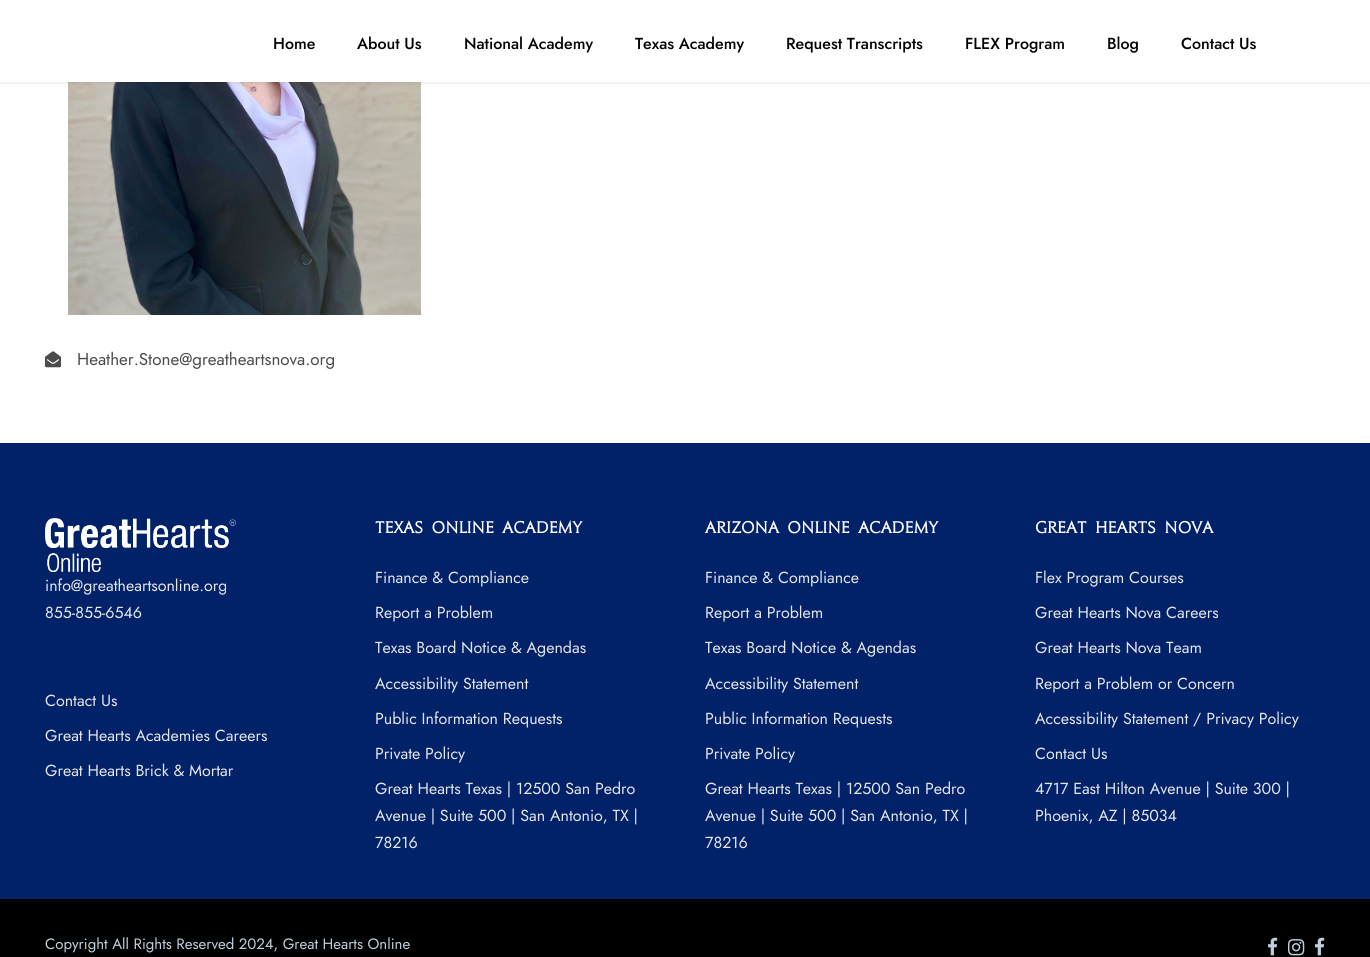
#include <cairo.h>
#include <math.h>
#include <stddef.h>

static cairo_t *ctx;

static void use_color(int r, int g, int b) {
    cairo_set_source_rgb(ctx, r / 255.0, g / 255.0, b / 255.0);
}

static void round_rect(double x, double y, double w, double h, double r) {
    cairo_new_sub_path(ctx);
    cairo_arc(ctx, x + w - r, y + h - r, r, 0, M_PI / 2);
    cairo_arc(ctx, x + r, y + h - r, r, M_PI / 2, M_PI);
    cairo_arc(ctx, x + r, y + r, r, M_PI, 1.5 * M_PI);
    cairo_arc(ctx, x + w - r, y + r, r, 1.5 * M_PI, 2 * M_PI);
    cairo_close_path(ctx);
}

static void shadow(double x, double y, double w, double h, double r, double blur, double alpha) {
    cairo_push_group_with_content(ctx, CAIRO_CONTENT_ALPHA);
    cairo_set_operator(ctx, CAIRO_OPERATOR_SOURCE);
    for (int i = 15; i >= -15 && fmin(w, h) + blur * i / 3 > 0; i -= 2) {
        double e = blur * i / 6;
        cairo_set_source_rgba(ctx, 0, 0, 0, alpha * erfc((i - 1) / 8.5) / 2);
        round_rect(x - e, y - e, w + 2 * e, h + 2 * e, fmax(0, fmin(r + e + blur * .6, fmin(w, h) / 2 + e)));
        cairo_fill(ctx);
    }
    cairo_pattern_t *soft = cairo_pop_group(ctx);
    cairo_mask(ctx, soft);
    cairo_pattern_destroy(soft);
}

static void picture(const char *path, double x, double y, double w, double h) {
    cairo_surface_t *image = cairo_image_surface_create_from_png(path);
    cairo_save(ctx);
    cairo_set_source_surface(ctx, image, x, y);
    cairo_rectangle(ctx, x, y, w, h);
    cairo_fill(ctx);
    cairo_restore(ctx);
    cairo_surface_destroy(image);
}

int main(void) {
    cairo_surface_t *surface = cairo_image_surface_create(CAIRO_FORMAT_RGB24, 1370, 957);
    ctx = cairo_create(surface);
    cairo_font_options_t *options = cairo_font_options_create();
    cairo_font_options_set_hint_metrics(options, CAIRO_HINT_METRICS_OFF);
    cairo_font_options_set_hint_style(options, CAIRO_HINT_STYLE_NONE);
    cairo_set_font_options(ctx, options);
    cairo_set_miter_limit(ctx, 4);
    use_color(255, 255, 255);
    cairo_paint(ctx);
    picture("img1.png", 68, 82, 353, 233);
    use_color(0, 0, 0);
    shadow(0, 1, 1370, 82, 0, 2, 0.1);
    use_color(255, 255, 255);
    cairo_rectangle(ctx, 0, 0, 1370, 82);
    cairo_fill(ctx);
    cairo_select_font_face(ctx, "Jost Medium", CAIRO_FONT_SLANT_NORMAL, CAIRO_FONT_WEIGHT_NORMAL);
    cairo_set_font_size(ctx, 16);
    use_color(0, 0, 0);
    cairo_move_to(ctx, 273, 49);
    cairo_show_text(ctx, "Home");
    cairo_move_to(ctx, 357, 49);
    cairo_show_text(ctx, "About Us");
    cairo_move_to(ctx, 464, 49);
    cairo_show_text(ctx, "National Academy");
    cairo_move_to(ctx, 635, 49);
    cairo_show_text(ctx, "Texas Academy");
    cairo_move_to(ctx, 786, 49);
    cairo_show_text(ctx, "Request Transcripts");
    cairo_move_to(ctx, 965, 49);
    cairo_show_text(ctx, "FLEX Program");
    cairo_move_to(ctx, 1107, 49);
    cairo_show_text(ctx, "Blog");
    cairo_move_to(ctx, 1181, 49);
    cairo_show_text(ctx, "Contact Us");
    picture("img2.png", 45, 351, 16, 17);
    cairo_select_font_face(ctx, "Jost", CAIRO_FONT_SLANT_NORMAL, CAIRO_FONT_WEIGHT_NORMAL);
    cairo_set_font_size(ctx, 17);
    use_color(76, 76, 76);
    cairo_move_to(ctx, 77, 365);
    cairo_show_text(ctx, "Heather.Stone@greatheartsnova.org");
    use_color(1, 33, 105);
    cairo_rectangle(ctx, 0, 443, 1370, 456);
    cairo_fill(ctx);
    picture("img3.png", 45, 518, 191, 54);
    cairo_set_font_size(ctx, 16);
    use_color(227, 230, 234);
    cairo_move_to(ctx, 45, 591);
    cairo_show_text(ctx, "info@greatheartsonline.org");
    cairo_move_to(ctx, 45, 618);
    cairo_show_text(ctx, "855-855-6546");
    cairo_move_to(ctx, 45, 706);
    cairo_show_text(ctx, "Contact Us");
    cairo_move_to(ctx, 45, 741);
    cairo_show_text(ctx, "Great Hearts Academies Careers");
    cairo_move_to(ctx, 45, 776);
    cairo_show_text(ctx, "Great Hearts Brick & Mortar");
    cairo_select_font_face(ctx, "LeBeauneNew", CAIRO_FONT_SLANT_NORMAL, CAIRO_FONT_WEIGHT_BOLD);
    cairo_set_font_size(ctx, 17);
    use_color(255, 255, 255);
    cairo_move_to(ctx, 375, 533);
    cairo_show_text(ctx, "Texas Online Academy");
    cairo_select_font_face(ctx, "Jost", CAIRO_FONT_SLANT_NORMAL, CAIRO_FONT_WEIGHT_NORMAL);
    cairo_set_font_size(ctx, 16);
    use_color(227, 230, 234);
    cairo_move_to(ctx, 375, 583);
    cairo_show_text(ctx, "Finance & Compliance");
    cairo_move_to(ctx, 375, 618);
    cairo_show_text(ctx, "Report a Problem");
    cairo_move_to(ctx, 375, 653);
    cairo_show_text(ctx, "Texas Board Notice & Agendas");
    cairo_move_to(ctx, 375, 689);
    cairo_show_text(ctx, "Accessibility Statement");
    cairo_move_to(ctx, 375, 724);
    cairo_show_text(ctx, "Public Information Requests");
    cairo_move_to(ctx, 375, 759);
    cairo_show_text(ctx, "Private Policy");
    cairo_move_to(ctx, 375, 794);
    cairo_show_text(ctx, "Great Hearts Texas | 12500 San Pedro");
    cairo_move_to(ctx, 375, 821);
    cairo_show_text(ctx, "Avenue | Suite 500 | San Antonio, TX |");
    cairo_move_to(ctx, 375, 848);
    cairo_show_text(ctx, "78216");
    cairo_select_font_face(ctx, "LeBeauneNew", CAIRO_FONT_SLANT_NORMAL, CAIRO_FONT_WEIGHT_BOLD);
    cairo_set_font_size(ctx, 17);
    use_color(255, 255, 255);
    cairo_move_to(ctx, 705, 533);
    cairo_show_text(ctx, "Arizona Online Academy");
    cairo_select_font_face(ctx, "Jost", CAIRO_FONT_SLANT_NORMAL, CAIRO_FONT_WEIGHT_NORMAL);
    cairo_set_font_size(ctx, 16);
    use_color(227, 230, 234);
    cairo_move_to(ctx, 705, 583);
    cairo_show_text(ctx, "Finance & Compliance");
    cairo_move_to(ctx, 705, 618);
    cairo_show_text(ctx, "Report a Problem");
    cairo_move_to(ctx, 705, 653);
    cairo_show_text(ctx, "Texas Board Notice & Agendas");
    cairo_move_to(ctx, 705, 689);
    cairo_show_text(ctx, "Accessibility Statement");
    cairo_move_to(ctx, 705, 724);
    cairo_show_text(ctx, "Public Information Requests");
    cairo_move_to(ctx, 705, 759);
    cairo_show_text(ctx, "Private Policy");
    cairo_move_to(ctx, 705, 794);
    cairo_show_text(ctx, "Great Hearts Texas | 12500 San Pedro");
    cairo_move_to(ctx, 705, 821);
    cairo_show_text(ctx, "Avenue | Suite 500 | San Antonio, TX |");
    cairo_move_to(ctx, 705, 848);
    cairo_show_text(ctx, "78216");
    cairo_select_font_face(ctx, "LeBeauneNew", CAIRO_FONT_SLANT_NORMAL, CAIRO_FONT_WEIGHT_BOLD);
    cairo_set_font_size(ctx, 17);
    use_color(255, 255, 255);
    cairo_move_to(ctx, 1035, 533);
    cairo_show_text(ctx, "Great Hearts Nova");
    cairo_select_font_face(ctx, "Jost", CAIRO_FONT_SLANT_NORMAL, CAIRO_FONT_WEIGHT_NORMAL);
    cairo_set_font_size(ctx, 16);
    use_color(227, 230, 234);
    cairo_move_to(ctx, 1035, 583);
    cairo_show_text(ctx, "Flex Program Courses");
    cairo_move_to(ctx, 1035, 618);
    cairo_show_text(ctx, "Great Hearts Nova Careers");
    cairo_move_to(ctx, 1035, 653);
    cairo_show_text(ctx, "Great Hearts Nova Team");
    cairo_move_to(ctx, 1035, 689);
    cairo_show_text(ctx, "Report a Problem or Concern");
    cairo_move_to(ctx, 1035, 724);
    cairo_show_text(ctx, "Accessibility Statement / Privacy Policy");
    cairo_move_to(ctx, 1035, 759);
    cairo_show_text(ctx, "Contact Us");
    cairo_move_to(ctx, 1035, 794);
    cairo_show_text(ctx, "4717 East Hilton Avenue | Suite 300 |");
    cairo_move_to(ctx, 1035, 821);
    cairo_show_text(ctx, "Phoenix, AZ | 85034");
    use_color(0, 0, 0);
    cairo_rectangle(ctx, 0, 899, 1370, 58);
    cairo_fill(ctx);
    cairo_set_font_size(ctx, 15);
    use_color(192, 208, 219);
    cairo_move_to(ctx, 45, 949);
    cairo_show_text(ctx, "Copyright All Rights Reserved 2024, Great Hearts Online");
    picture("img4.png", 1268, 937, 10, 19);
    picture("img5.png", 1288, 939, 17, 17);
    picture("img4.png", 1315, 937, 10, 19);
    cairo_surface_write_to_png(surface, "result.png");
    cairo_font_options_destroy(options);
    cairo_destroy(ctx);
    cairo_surface_destroy(surface);
    return 0;
}
